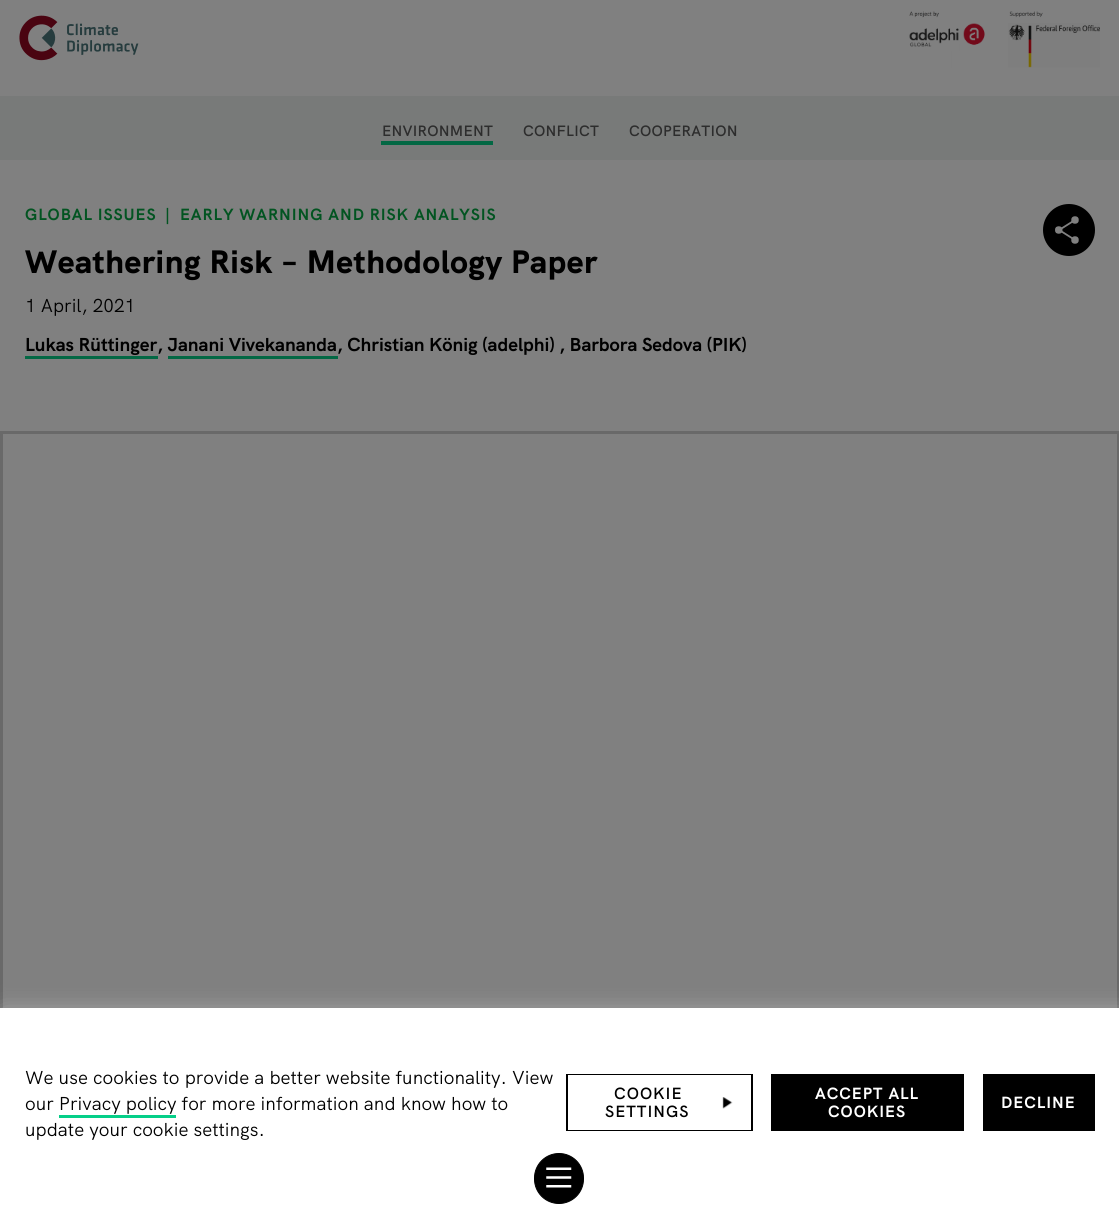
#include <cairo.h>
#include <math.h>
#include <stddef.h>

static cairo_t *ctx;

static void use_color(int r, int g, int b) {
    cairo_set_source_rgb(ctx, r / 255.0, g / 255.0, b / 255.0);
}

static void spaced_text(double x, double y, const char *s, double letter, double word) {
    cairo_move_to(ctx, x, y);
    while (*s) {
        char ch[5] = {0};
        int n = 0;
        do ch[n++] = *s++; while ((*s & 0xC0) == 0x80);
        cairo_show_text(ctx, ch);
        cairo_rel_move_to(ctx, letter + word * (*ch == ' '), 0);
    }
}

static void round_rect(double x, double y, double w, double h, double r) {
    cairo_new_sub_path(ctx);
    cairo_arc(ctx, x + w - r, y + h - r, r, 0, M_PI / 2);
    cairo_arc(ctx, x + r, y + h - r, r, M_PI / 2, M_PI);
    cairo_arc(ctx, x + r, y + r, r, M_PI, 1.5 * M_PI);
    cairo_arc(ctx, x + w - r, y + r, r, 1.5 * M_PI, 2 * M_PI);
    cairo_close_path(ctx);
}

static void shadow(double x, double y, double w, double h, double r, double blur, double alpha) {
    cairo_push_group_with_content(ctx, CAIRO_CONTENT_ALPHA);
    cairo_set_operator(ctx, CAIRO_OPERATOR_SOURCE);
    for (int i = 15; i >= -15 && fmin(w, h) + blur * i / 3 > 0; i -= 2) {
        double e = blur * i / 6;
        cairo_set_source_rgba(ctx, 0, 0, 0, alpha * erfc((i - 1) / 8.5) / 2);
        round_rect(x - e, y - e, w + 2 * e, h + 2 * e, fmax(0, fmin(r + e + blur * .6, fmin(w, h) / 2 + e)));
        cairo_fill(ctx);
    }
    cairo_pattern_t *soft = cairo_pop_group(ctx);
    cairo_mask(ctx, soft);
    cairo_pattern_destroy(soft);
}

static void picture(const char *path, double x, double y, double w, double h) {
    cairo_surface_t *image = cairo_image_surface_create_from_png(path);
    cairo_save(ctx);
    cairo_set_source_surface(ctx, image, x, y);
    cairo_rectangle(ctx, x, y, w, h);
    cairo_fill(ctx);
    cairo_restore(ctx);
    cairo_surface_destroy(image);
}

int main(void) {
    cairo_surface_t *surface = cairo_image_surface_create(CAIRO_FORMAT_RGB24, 1119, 1216);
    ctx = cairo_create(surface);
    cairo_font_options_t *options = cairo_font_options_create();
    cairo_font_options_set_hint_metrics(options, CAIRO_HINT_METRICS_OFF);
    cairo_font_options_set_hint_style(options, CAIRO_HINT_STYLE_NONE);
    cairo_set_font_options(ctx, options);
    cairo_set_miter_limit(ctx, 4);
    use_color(128, 128, 128);
    cairo_paint(ctx);
    picture("img1.png", 19, 15, 120, 46);
    picture("img2.png", 909, 11, 191, 57);
    cairo_rectangle(ctx, 1.5, 432.5, 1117, 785);
    use_color(105, 105, 105);
    cairo_set_line_width(ctx, 3);
    cairo_stroke(ctx);
    use_color(211, 211, 211);
    shadow(3, 1010, 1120, 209, 0, 10.5, 0.5);
    use_color(255, 255, 255);
    cairo_rectangle(ctx, 0, 1008, 1119, 208);
    cairo_fill(ctx);
    use_color(0, 0, 0);
    round_rect(534.5, 1153.5, 49, 50, 24.5);
    cairo_fill_preserve(ctx);
    cairo_set_line_width(ctx, 1);
    cairo_stroke(ctx);
    picture("img3.png", 546, 1167, 26, 21);
    use_color(120, 122, 121);
    cairo_rectangle(ctx, 0, 96, 1119, 64);
    cairo_fill(ctx);
    cairo_select_font_face(ctx, "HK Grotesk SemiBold", CAIRO_FONT_SLANT_NORMAL, CAIRO_FONT_WEIGHT_NORMAL);
    cairo_set_font_size(ctx, 15);
    use_color(45, 45, 45);
    spaced_text(382, 136, "ENVIRONMENT", 0.25, 0);
    use_color(3, 104, 68);
    cairo_rectangle(ctx, 381, 141, 112, 4);
    cairo_fill(ctx);
    use_color(45, 45, 45);
    spaced_text(523, 136, "CONFLICT", 0.25, 0);
    spaced_text(629, 136, "COOPERATION", 0.25, 0);
    cairo_select_font_face(ctx, "HK Grotesk", CAIRO_FONT_SLANT_NORMAL, CAIRO_FONT_WEIGHT_BOLD);
    cairo_set_font_size(ctx, 16.25);
    use_color(2, 84, 33);
    spaced_text(25, 220, "GLOBAL ISSUES", 0.95, 0);
    spaced_text(165, 220, "|", 0.95, 0);
    spaced_text(180, 220, "EARLY WARNING AND RISK ANALYSIS", 0.95, 0);
    cairo_select_font_face(ctx, "HK Grotesk ExtraBold", CAIRO_FONT_SLANT_NORMAL, CAIRO_FONT_WEIGHT_NORMAL);
    cairo_set_font_size(ctx, 32.5);
    use_color(0, 0, 0);
    spaced_text(25, 273, "Weathering Risk – Methodology Paper", 0.6, 0);
    cairo_select_font_face(ctx, "HK Grotesk", CAIRO_FONT_SLANT_NORMAL, CAIRO_FONT_WEIGHT_NORMAL);
    cairo_set_font_size(ctx, 18.75);
    cairo_move_to(ctx, 25, 312);
    cairo_show_text(ctx, "1 April, 2021");
    cairo_select_font_face(ctx, "HK Grotesk", CAIRO_FONT_SLANT_NORMAL, CAIRO_FONT_WEIGHT_BOLD);
    cairo_move_to(ctx, 25, 351);
    cairo_show_text(ctx, "Lukas Rüttinger, Janani Vivekananda, Christian König (adelphi) , Barbora Sedova (PIK)");
    use_color(3, 104, 68);
    cairo_rectangle(ctx, 25, 356, 133, 3);
    cairo_fill(ctx);
    cairo_rectangle(ctx, 168, 356, 170, 3);
    cairo_fill(ctx);
    use_color(0, 0, 0);
    cairo_arc(ctx, 1069, 230, 26, 0, 2 * M_PI);
    cairo_fill(ctx);
    picture("img4.png", 1055, 216, 24, 28);
    cairo_select_font_face(ctx, "HK Grotesk", CAIRO_FONT_SLANT_NORMAL, CAIRO_FONT_WEIGHT_NORMAL);
    cairo_move_to(ctx, 25, 1084);
    cairo_show_text(ctx, "We use cookies to provide a better website functionality. View");
    cairo_move_to(ctx, 25, 1110);
    cairo_show_text(ctx, "our Privacy policy for more information and know how to");
    use_color(5, 207, 136);
    cairo_rectangle(ctx, 59, 1115, 117, 3);
    cairo_fill(ctx);
    use_color(0, 0, 0);
    cairo_move_to(ctx, 25, 1136);
    cairo_show_text(ctx, "update your cookie settings.");
    cairo_rectangle(ctx, 567, 1074, 1, 57);
    cairo_fill(ctx);
    cairo_rectangle(ctx, 751, 1074, 1, 57);
    cairo_fill(ctx);
    cairo_rectangle(ctx, 566.5, 1074.5, 186, 56);
    cairo_stroke(ctx);
    cairo_select_font_face(ctx, "HK Grotesk SemiBold", CAIRO_FONT_SLANT_NORMAL, CAIRO_FONT_WEIGHT_NORMAL);
    cairo_set_font_size(ctx, 16.25);
    spaced_text(614, 1099, "COOKIE", 1, 0);
    spaced_text(605, 1117, "SETTINGS", 1, 0);
    picture("img5.png", 722, 1097, 11, 12);
    cairo_rectangle(ctx, 771, 1074, 193, 57);
    cairo_fill(ctx);
    cairo_select_font_face(ctx, "HK Grotesk", CAIRO_FONT_SLANT_NORMAL, CAIRO_FONT_WEIGHT_BOLD);
    use_color(255, 255, 255);
    spaced_text(815, 1099, "ACCEPT ALL", 1, 0);
    spaced_text(828, 1117, "COOKIES", 1, 0);
    use_color(0, 0, 0);
    cairo_rectangle(ctx, 983, 1074, 112, 57);
    cairo_fill(ctx);
    use_color(255, 255, 255);
    spaced_text(1001, 1108, "DECLINE", 1, 0);
    cairo_surface_write_to_png(surface, "result.png");
    cairo_font_options_destroy(options);
    cairo_destroy(ctx);
    cairo_surface_destroy(surface);
    return 0;
}
